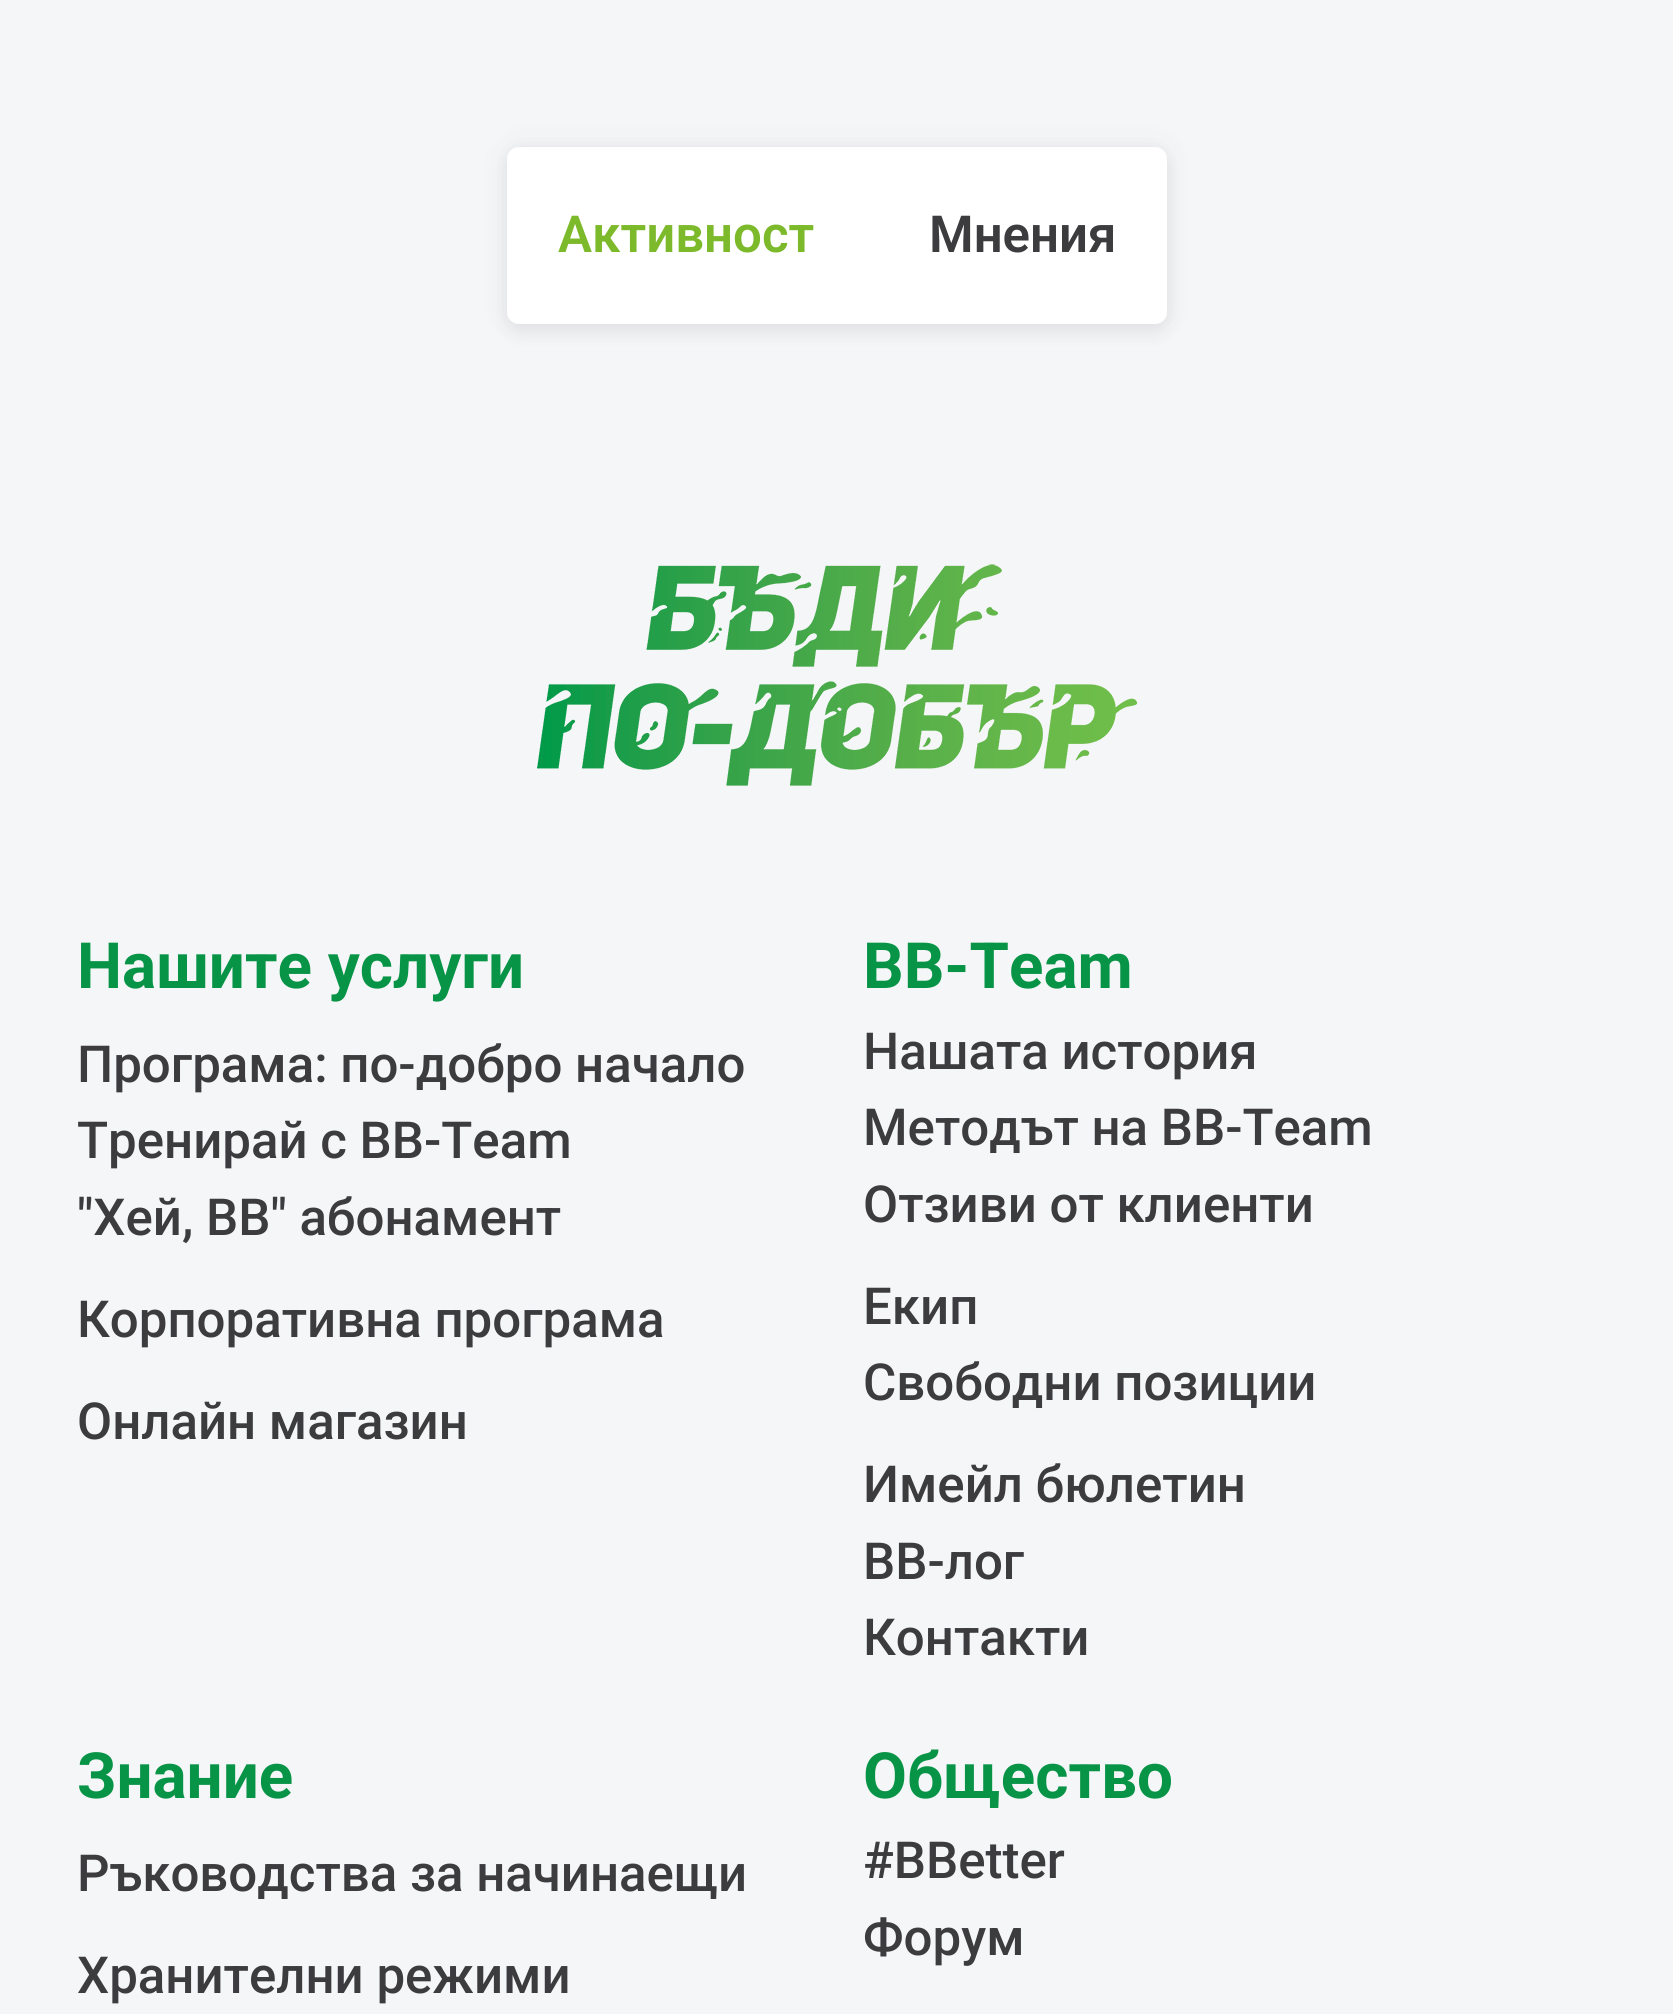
#include <cairo.h>
#include <math.h>
#include <stddef.h>

static cairo_t *ctx;

static void use_color(int r, int g, int b) {
    cairo_set_source_rgb(ctx, r / 255.0, g / 255.0, b / 255.0);
}

static void round_rect(double x, double y, double w, double h, double r) {
    cairo_new_sub_path(ctx);
    cairo_arc(ctx, x + w - r, y + h - r, r, 0, M_PI / 2);
    cairo_arc(ctx, x + r, y + h - r, r, M_PI / 2, M_PI);
    cairo_arc(ctx, x + r, y + r, r, M_PI, 1.5 * M_PI);
    cairo_arc(ctx, x + w - r, y + r, r, 1.5 * M_PI, 2 * M_PI);
    cairo_close_path(ctx);
}

static void shadow(double x, double y, double w, double h, double r, double blur, double alpha) {
    cairo_push_group_with_content(ctx, CAIRO_CONTENT_ALPHA);
    cairo_set_operator(ctx, CAIRO_OPERATOR_SOURCE);
    for (int i = 15; i >= -15 && fmin(w, h) + blur * i / 3 > 0; i -= 2) {
        double e = blur * i / 6;
        cairo_set_source_rgba(ctx, 0, 0, 0, alpha * erfc((i - 1) / 8.5) / 2);
        round_rect(x - e, y - e, w + 2 * e, h + 2 * e, fmax(0, fmin(r + e + blur * .6, fmin(w, h) / 2 + e)));
        cairo_fill(ctx);
    }
    cairo_pattern_t *soft = cairo_pop_group(ctx);
    cairo_mask(ctx, soft);
    cairo_pattern_destroy(soft);
}

static void picture(const char *path, double x, double y, double w, double h) {
    cairo_surface_t *image = cairo_image_surface_create_from_png(path);
    cairo_save(ctx);
    cairo_set_source_surface(ctx, image, x, y);
    cairo_rectangle(ctx, x, y, w, h);
    cairo_fill(ctx);
    cairo_restore(ctx);
    cairo_surface_destroy(image);
}

int main(void) {
    cairo_surface_t *surface = cairo_image_surface_create(CAIRO_FORMAT_RGB24, 1673, 2014);
    ctx = cairo_create(surface);
    cairo_font_options_t *options = cairo_font_options_create();
    cairo_font_options_set_hint_metrics(options, CAIRO_HINT_METRICS_OFF);
    cairo_font_options_set_hint_style(options, CAIRO_HINT_STYLE_NONE);
    cairo_set_font_options(ctx, options);
    cairo_set_miter_limit(ctx, 4);
    use_color(245, 246, 248);
    cairo_paint(ctx);
    use_color(60, 60, 63);
    shadow(507, 156, 660, 177, 12, 9, 0.07);
    shadow(507, 147, 660, 177, 12, 12, 0.09);
    use_color(255, 255, 255);
    round_rect(507, 147, 660, 177, 12);
    cairo_fill(ctx);
    cairo_select_font_face(ctx, "Roboto SemiBold", CAIRO_FONT_SLANT_NORMAL, CAIRO_FONT_WEIGHT_NORMAL);
    cairo_set_font_size(ctx, 51);
    use_color(124, 186, 43);
    cairo_move_to(ctx, 558, 252);
    cairo_show_text(ctx, "Активност");
    use_color(60, 60, 63);
    cairo_move_to(ctx, 929, 252);
    cairo_show_text(ctx, "Мнения");
    picture("img1.png", 537, 564, 600, 222);
    cairo_select_font_face(ctx, "Roboto", CAIRO_FONT_SLANT_NORMAL, CAIRO_FONT_WEIGHT_BOLD);
    cairo_set_font_size(ctx, 63.75);
    use_color(8, 148, 71);
    cairo_move_to(ctx, 77, 988);
    cairo_show_text(ctx, "Нашите услуги");
    cairo_select_font_face(ctx, "Roboto Medium", CAIRO_FONT_SLANT_NORMAL, CAIRO_FONT_WEIGHT_NORMAL);
    cairo_set_font_size(ctx, 51);
    use_color(60, 60, 63);
    cairo_move_to(ctx, 77, 1082);
    cairo_show_text(ctx, "Програма: по-добро начало");
    cairo_move_to(ctx, 77, 1158);
    cairo_show_text(ctx, "Тренирай с BB-Team");
    cairo_move_to(ctx, 77, 1235);
    cairo_show_text(ctx, "\"Хей, ВВ\" абонамент");
    cairo_move_to(ctx, 77, 1337);
    cairo_show_text(ctx, "Корпоративна програма");
    cairo_move_to(ctx, 77, 1439);
    cairo_show_text(ctx, "Онлайн магазин");
    cairo_select_font_face(ctx, "Roboto", CAIRO_FONT_SLANT_NORMAL, CAIRO_FONT_WEIGHT_BOLD);
    cairo_set_font_size(ctx, 63.75);
    use_color(8, 148, 71);
    cairo_move_to(ctx, 863, 988);
    cairo_show_text(ctx, "BB-Team");
    cairo_select_font_face(ctx, "Roboto Medium", CAIRO_FONT_SLANT_NORMAL, CAIRO_FONT_WEIGHT_NORMAL);
    cairo_set_font_size(ctx, 51);
    use_color(60, 60, 63);
    cairo_move_to(ctx, 863, 1069);
    cairo_show_text(ctx, "Нашата история");
    cairo_move_to(ctx, 863, 1145);
    cairo_show_text(ctx, "Методът на BB-Team");
    cairo_move_to(ctx, 863, 1222);
    cairo_show_text(ctx, "Отзиви от клиенти");
    cairo_move_to(ctx, 863, 1324);
    cairo_show_text(ctx, "Екип");
    cairo_move_to(ctx, 863, 1400);
    cairo_show_text(ctx, "Свободни позиции");
    cairo_move_to(ctx, 863, 1502);
    cairo_show_text(ctx, "Имейл бюлетин");
    cairo_move_to(ctx, 863, 1579);
    cairo_show_text(ctx, "BB-лог");
    cairo_move_to(ctx, 863, 1655);
    cairo_show_text(ctx, "Контакти");
    cairo_select_font_face(ctx, "Roboto", CAIRO_FONT_SLANT_NORMAL, CAIRO_FONT_WEIGHT_BOLD);
    cairo_set_font_size(ctx, 63.75);
    use_color(8, 148, 71);
    cairo_move_to(ctx, 77, 1798);
    cairo_show_text(ctx, "Знание");
    cairo_select_font_face(ctx, "Roboto Medium", CAIRO_FONT_SLANT_NORMAL, CAIRO_FONT_WEIGHT_NORMAL);
    cairo_set_font_size(ctx, 51);
    use_color(60, 60, 63);
    cairo_move_to(ctx, 77, 1891);
    cairo_show_text(ctx, "Ръководства за начинаещи");
    cairo_move_to(ctx, 77, 1993);
    cairo_show_text(ctx, "Хранителни режими");
    cairo_select_font_face(ctx, "Roboto", CAIRO_FONT_SLANT_NORMAL, CAIRO_FONT_WEIGHT_BOLD);
    cairo_set_font_size(ctx, 63.75);
    use_color(8, 148, 71);
    cairo_move_to(ctx, 863, 1798);
    cairo_show_text(ctx, "Общество");
    cairo_select_font_face(ctx, "Roboto Medium", CAIRO_FONT_SLANT_NORMAL, CAIRO_FONT_WEIGHT_NORMAL);
    cairo_set_font_size(ctx, 51);
    use_color(60, 60, 63);
    cairo_move_to(ctx, 863, 1878);
    cairo_show_text(ctx, "#BBetter");
    cairo_move_to(ctx, 863, 1955);
    cairo_show_text(ctx, "Форум");
    cairo_surface_write_to_png(surface, "result.png");
    cairo_font_options_destroy(options);
    cairo_destroy(ctx);
    cairo_surface_destroy(surface);
    return 0;
}
